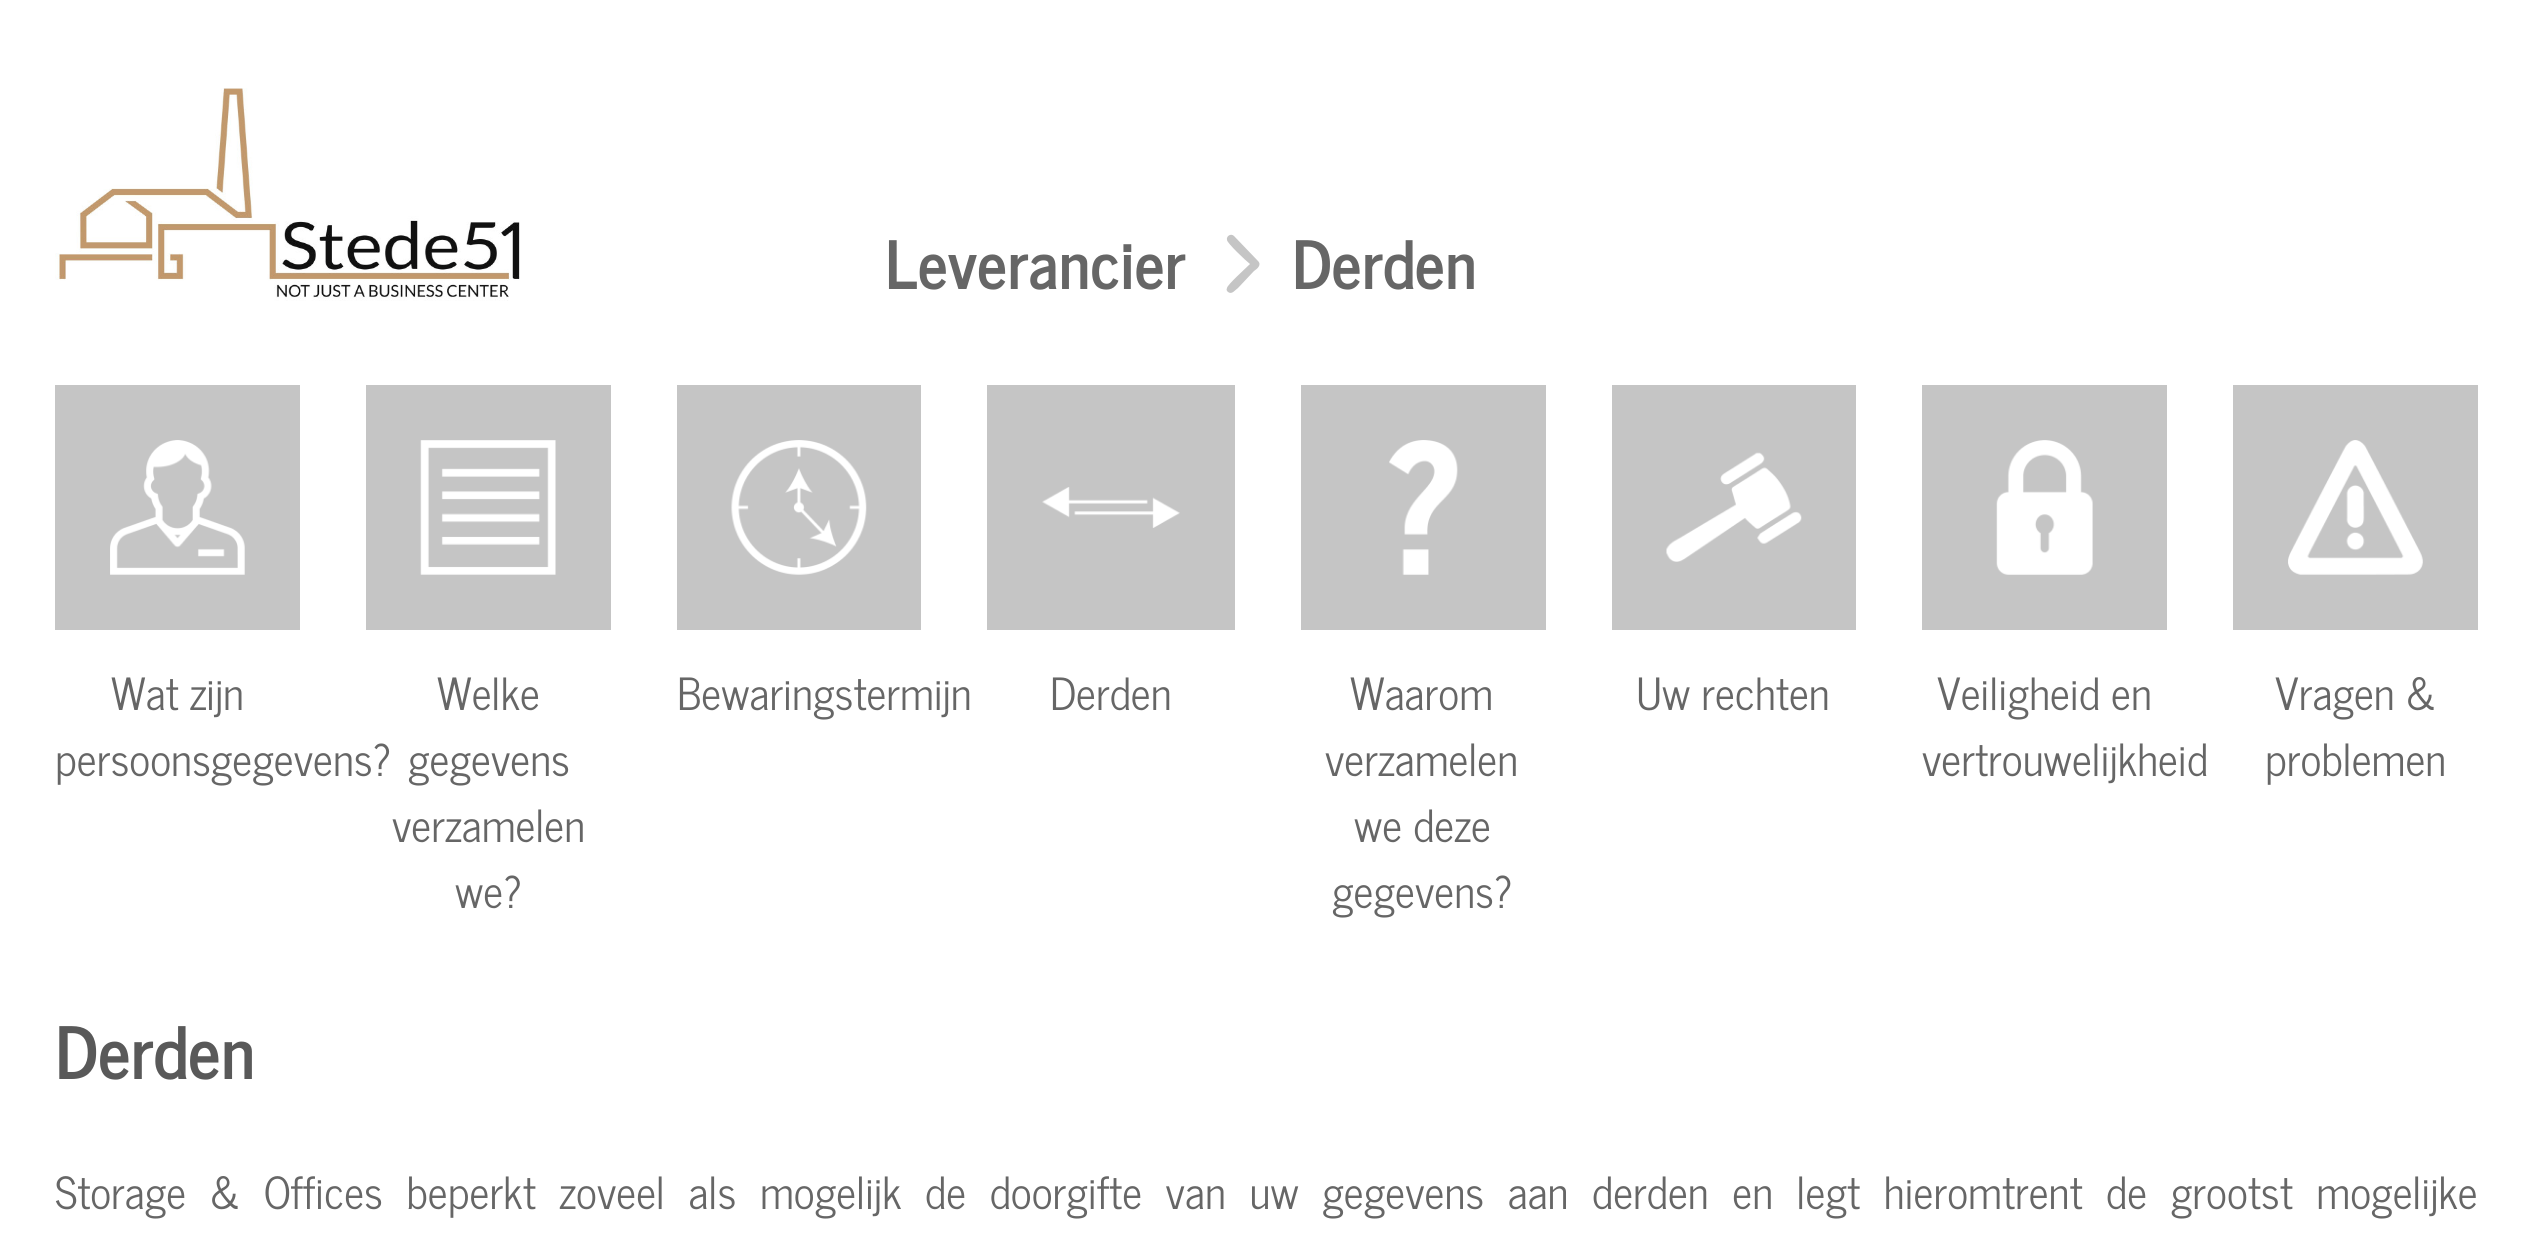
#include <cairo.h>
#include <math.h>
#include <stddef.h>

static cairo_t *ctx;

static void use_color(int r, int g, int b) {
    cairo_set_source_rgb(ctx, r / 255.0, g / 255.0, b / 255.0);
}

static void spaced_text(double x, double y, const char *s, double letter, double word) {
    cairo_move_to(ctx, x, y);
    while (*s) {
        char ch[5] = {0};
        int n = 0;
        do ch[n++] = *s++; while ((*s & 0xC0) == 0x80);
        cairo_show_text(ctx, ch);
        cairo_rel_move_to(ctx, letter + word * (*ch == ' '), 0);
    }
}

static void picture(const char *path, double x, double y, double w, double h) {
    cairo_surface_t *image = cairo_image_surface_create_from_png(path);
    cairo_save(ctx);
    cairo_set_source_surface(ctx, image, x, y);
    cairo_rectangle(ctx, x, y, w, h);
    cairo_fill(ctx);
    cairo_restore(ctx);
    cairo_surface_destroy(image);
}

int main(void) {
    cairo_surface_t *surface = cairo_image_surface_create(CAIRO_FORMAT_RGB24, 2532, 1233);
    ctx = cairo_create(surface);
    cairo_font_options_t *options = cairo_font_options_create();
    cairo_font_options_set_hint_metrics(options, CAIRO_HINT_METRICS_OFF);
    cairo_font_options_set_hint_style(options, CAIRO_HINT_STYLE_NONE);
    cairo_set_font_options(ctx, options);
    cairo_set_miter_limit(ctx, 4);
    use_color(255, 255, 255);
    cairo_paint(ctx);
    picture("img1.png", 55, 88, 465, 213);
    cairo_select_font_face(ctx, "News Cycle", CAIRO_FONT_SLANT_NORMAL, CAIRO_FONT_WEIGHT_BOLD);
    cairo_set_font_size(ctx, 66);
    use_color(102, 102, 102);
    cairo_move_to(ctx, 885, 289);
    cairo_show_text(ctx, "Leverancier");
    use_color(197, 197, 197);
    cairo_new_path(ctx);
    cairo_move_to(ctx, 1258, 261);
    cairo_curve_to(ctx, 1262, 265, 1257, 269, 1254, 271);
    cairo_line_to(ctx, 1238, 288);
    cairo_curve_to(ctx, 1235, 290, 1232, 295, 1228, 292);
    cairo_curve_to(ctx, 1227, 291, 1226, 290, 1227, 288);
    cairo_curve_to(ctx, 1227, 285, 1246, 268, 1250, 264);
    cairo_curve_to(ctx, 1246, 261, 1227, 243, 1227, 240);
    cairo_curve_to(ctx, 1226, 236, 1231, 233, 1234, 236);
    cairo_close_path(ctx);
    cairo_fill(ctx);
    use_color(102, 102, 102);
    cairo_move_to(ctx, 1292, 289);
    cairo_show_text(ctx, "Derden");
    use_color(197, 197, 197);
    cairo_rectangle(ctx, 55, 385, 245, 245);
    cairo_fill(ctx);
    picture("img2.png", 110, 440, 135, 135);
    cairo_select_font_face(ctx, "News Cycle", CAIRO_FONT_SLANT_NORMAL, CAIRO_FONT_WEIGHT_NORMAL);
    cairo_set_font_size(ctx, 44);
    use_color(102, 102, 102);
    cairo_move_to(ctx, 111, 710);
    cairo_show_text(ctx, "Wat zijn");
    cairo_move_to(ctx, 55, 776);
    cairo_show_text(ctx, "persoonsgegevens?");
    use_color(197, 197, 197);
    cairo_rectangle(ctx, 366, 385, 245, 245);
    cairo_fill(ctx);
    picture("img3.png", 420, 440, 136, 135);
    use_color(102, 102, 102);
    cairo_move_to(ctx, 437, 710);
    cairo_show_text(ctx, "Welke");
    cairo_move_to(ctx, 408, 776);
    cairo_show_text(ctx, "gegevens");
    cairo_move_to(ctx, 392, 842);
    cairo_show_text(ctx, "verzamelen");
    cairo_move_to(ctx, 455, 908);
    cairo_show_text(ctx, "we?");
    use_color(197, 197, 197);
    cairo_rectangle(ctx, 677, 385, 244, 245);
    cairo_fill(ctx);
    picture("img4.png", 731, 440, 136, 135);
    use_color(102, 102, 102);
    cairo_move_to(ctx, 677, 710);
    cairo_show_text(ctx, "Bewaringstermijn");
    use_color(197, 197, 197);
    cairo_rectangle(ctx, 987, 385, 248, 245);
    cairo_fill(ctx);
    picture("img5.png", 1042, 487, 138, 41);
    use_color(102, 102, 102);
    cairo_move_to(ctx, 1050, 710);
    cairo_show_text(ctx, "Derden");
    use_color(197, 197, 197);
    cairo_rectangle(ctx, 1301, 385, 245, 245);
    cairo_fill(ctx);
    picture("img6.png", 1389, 440, 69, 135);
    use_color(102, 102, 102);
    cairo_move_to(ctx, 1350, 710);
    cairo_show_text(ctx, "Waarom");
    cairo_move_to(ctx, 1325, 776);
    cairo_show_text(ctx, "verzamelen");
    cairo_move_to(ctx, 1354, 842);
    cairo_show_text(ctx, "we deze");
    cairo_move_to(ctx, 1332, 908);
    cairo_show_text(ctx, "gegevens?");
    use_color(197, 197, 197);
    cairo_rectangle(ctx, 1612, 385, 244, 245);
    cairo_fill(ctx);
    picture("img7.png", 1666, 452, 136, 110);
    use_color(102, 102, 102);
    cairo_move_to(ctx, 1636, 710);
    cairo_show_text(ctx, "Uw rechten");
    use_color(197, 197, 197);
    cairo_rectangle(ctx, 1922, 385, 245, 245);
    cairo_fill(ctx);
    picture("img8.png", 1996, 440, 97, 135);
    use_color(102, 102, 102);
    cairo_move_to(ctx, 1937, 710);
    cairo_show_text(ctx, "Veiligheid en");
    cairo_move_to(ctx, 1922, 776);
    cairo_show_text(ctx, "vertrouwelijkheid");
    use_color(197, 197, 197);
    cairo_rectangle(ctx, 2233, 385, 245, 245);
    cairo_fill(ctx);
    picture("img9.png", 2288, 440, 135, 135);
    use_color(102, 102, 102);
    cairo_move_to(ctx, 2275, 710);
    cairo_show_text(ctx, "Vragen &");
    cairo_move_to(ctx, 2265, 776);
    cairo_show_text(ctx, "problemen");
    cairo_select_font_face(ctx, "News Cycle", CAIRO_FONT_SLANT_NORMAL, CAIRO_FONT_WEIGHT_BOLD);
    cairo_set_font_size(ctx, 71.5);
    use_color(89, 89, 89);
    cairo_move_to(ctx, 55, 1079);
    cairo_show_text(ctx, "Derden");
    cairo_select_font_face(ctx, "News Cycle", CAIRO_FONT_SLANT_NORMAL, CAIRO_FONT_WEIGHT_NORMAL);
    cairo_set_font_size(ctx, 44);
    use_color(102, 102, 102);
    spaced_text(55, 1209, "Storage & Offices beperkt zoveel als mogelijk de doorgifte van uw gegevens aan derden en legt hieromtrent de grootst mogelijke", 0, 12.6);
    cairo_surface_write_to_png(surface, "result.png");
    cairo_font_options_destroy(options);
    cairo_destroy(ctx);
    cairo_surface_destroy(surface);
    return 0;
}
